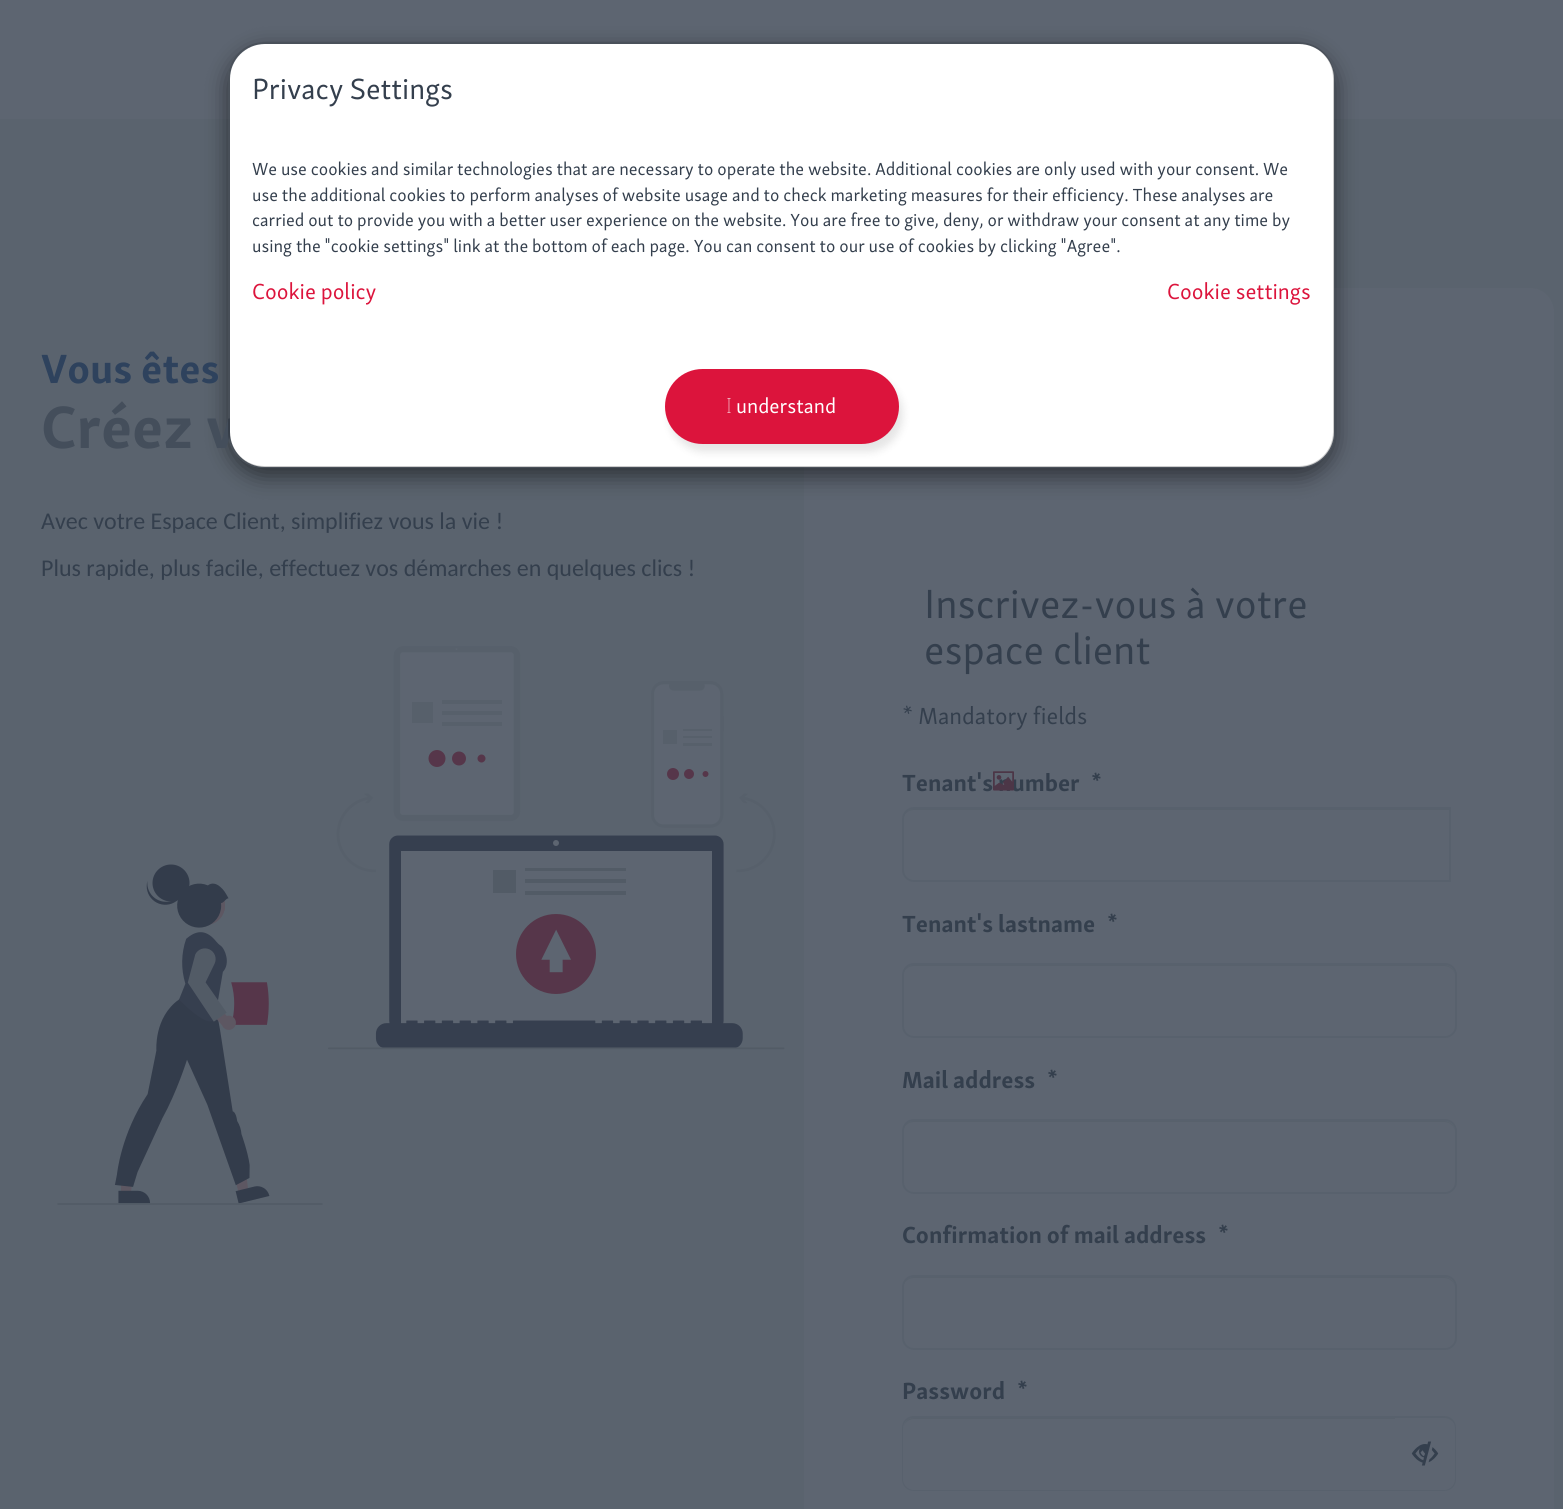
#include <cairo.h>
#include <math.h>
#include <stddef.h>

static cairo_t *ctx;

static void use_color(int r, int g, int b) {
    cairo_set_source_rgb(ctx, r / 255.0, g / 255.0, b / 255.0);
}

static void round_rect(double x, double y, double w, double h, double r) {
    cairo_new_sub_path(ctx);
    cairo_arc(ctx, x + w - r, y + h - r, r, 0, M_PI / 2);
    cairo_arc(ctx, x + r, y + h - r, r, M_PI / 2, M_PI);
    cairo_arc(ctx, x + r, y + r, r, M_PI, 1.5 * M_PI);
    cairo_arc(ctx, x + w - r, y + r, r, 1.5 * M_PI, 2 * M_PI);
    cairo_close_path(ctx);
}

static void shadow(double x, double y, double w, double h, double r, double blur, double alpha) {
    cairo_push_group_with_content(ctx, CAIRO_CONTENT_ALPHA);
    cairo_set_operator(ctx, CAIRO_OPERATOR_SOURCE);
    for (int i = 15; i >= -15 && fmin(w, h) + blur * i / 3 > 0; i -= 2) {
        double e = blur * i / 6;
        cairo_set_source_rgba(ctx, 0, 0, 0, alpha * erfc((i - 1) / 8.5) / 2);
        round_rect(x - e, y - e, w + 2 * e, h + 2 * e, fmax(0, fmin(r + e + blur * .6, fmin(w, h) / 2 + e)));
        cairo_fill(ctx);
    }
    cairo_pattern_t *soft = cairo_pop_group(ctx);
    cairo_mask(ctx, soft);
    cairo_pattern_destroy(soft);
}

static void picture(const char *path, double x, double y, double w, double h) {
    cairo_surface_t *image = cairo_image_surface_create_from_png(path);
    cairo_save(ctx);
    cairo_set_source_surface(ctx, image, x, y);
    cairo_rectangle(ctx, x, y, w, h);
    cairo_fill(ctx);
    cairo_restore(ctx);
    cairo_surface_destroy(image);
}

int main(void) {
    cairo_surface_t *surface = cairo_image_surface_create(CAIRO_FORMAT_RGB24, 1563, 1509);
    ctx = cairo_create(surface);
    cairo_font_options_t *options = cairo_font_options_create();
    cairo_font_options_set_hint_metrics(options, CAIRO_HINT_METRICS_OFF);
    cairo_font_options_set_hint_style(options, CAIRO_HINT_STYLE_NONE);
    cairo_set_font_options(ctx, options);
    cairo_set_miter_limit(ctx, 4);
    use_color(90, 99, 110);
    cairo_paint(ctx);
    use_color(93, 101, 113);
    cairo_rectangle(ctx, 0, 0, 1563, 119);
    cairo_fill(ctx);
    round_rect(804, 288, 750, 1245, 24);
    cairo_fill(ctx);
    cairo_save(ctx);
    cairo_set_fill_rule(ctx, CAIRO_FILL_RULE_EVEN_ODD);
    cairo_new_path(ctx);
    cairo_move_to(ctx, 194, 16);
    cairo_line_to(ctx, 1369, 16);
    cairo_line_to(ctx, 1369, 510);
    cairo_line_to(ctx, 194, 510);
    cairo_close_path(ctx);
    cairo_move_to(ctx, 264, 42);
    cairo_line_to(ctx, 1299, 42);
    cairo_curve_to(ctx, 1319, 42, 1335, 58, 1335, 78);
    cairo_line_to(ctx, 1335, 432);
    cairo_curve_to(ctx, 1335, 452, 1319, 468, 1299, 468);
    cairo_line_to(ctx, 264, 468);
    cairo_curve_to(ctx, 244, 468, 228, 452, 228, 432);
    cairo_line_to(ctx, 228, 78);
    cairo_curve_to(ctx, 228, 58, 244, 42, 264, 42);
    cairo_close_path(ctx);
    cairo_clip(ctx);
    use_color(0, 0, 0);
    shadow(228, 50, 1107, 426, 36, 11, 0.5);
    cairo_restore(ctx);
    cairo_select_font_face(ctx, "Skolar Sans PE", CAIRO_FONT_SLANT_NORMAL, CAIRO_FONT_WEIGHT_BOLD);
    cairo_set_font_size(ctx, 61.5);
    use_color(68, 78, 91);
    cairo_move_to(ctx, 41, 448);
    cairo_show_text(ctx, "Créez v");
    use_color(255, 255, 255);
    round_rect(230, 44, 1104, 423, 35);
    cairo_fill(ctx);
    round_rect(229, 43, 1105, 424, 35);
    cairo_set_source_rgba(ctx, 0, 0, 0, 0.2);
    cairo_stroke(ctx);
    cairo_select_font_face(ctx, "Skolar Sans PE", CAIRO_FONT_SLANT_NORMAL, CAIRO_FONT_WEIGHT_NORMAL);
    cairo_set_font_size(ctx, 30);
    use_color(52, 63, 77);
    cairo_move_to(ctx, 252, 99);
    cairo_show_text(ctx, "Privacy Settings");
    cairo_set_font_size(ctx, 18);
    cairo_move_to(ctx, 252, 175);
    cairo_show_text(ctx, "We use cookies and similar technologies that are necessary to operate the website. Additional cookies are only used with your consent. We");
    cairo_move_to(ctx, 252, 201);
    cairo_show_text(ctx, "use the additional cookies to perform analyses of website usage and to check marketing measures for their efficiency. These analyses are");
    cairo_move_to(ctx, 252, 226);
    cairo_show_text(ctx, "carried out to provide you with a better user experience on the website. You are free to give, deny, or withdraw your consent at any time by");
    cairo_move_to(ctx, 252, 252);
    cairo_show_text(ctx, "using the \"cookie settings\" link at the bottom of each page. You can consent to our use of cookies by clicking \"Agree\".");
    cairo_set_font_size(ctx, 22.5);
    use_color(220, 20, 60);
    cairo_move_to(ctx, 252, 299);
    cairo_show_text(ctx, "Cookie policy");
    cairo_move_to(ctx, 1167, 299);
    cairo_show_text(ctx, "Cookie settings");
    use_color(0, 0, 0);
    shadow(669, 377, 234, 75, 37.5, 4, 0.1);
    use_color(220, 20, 60);
    round_rect(665, 369, 234, 75, 37.5);
    cairo_fill(ctx);
    cairo_select_font_face(ctx, "Noto Sans Thin", CAIRO_FONT_SLANT_NORMAL, CAIRO_FONT_WEIGHT_NORMAL);
    cairo_set_font_size(ctx, 21);
    use_color(255, 255, 255);
    cairo_move_to(ctx, 726, 413);
    cairo_show_text(ctx, "I");
    cairo_select_font_face(ctx, "Skolar Sans PE", CAIRO_FONT_SLANT_NORMAL, CAIRO_FONT_WEIGHT_NORMAL);
    cairo_move_to(ctx, 736, 413);
    cairo_show_text(ctx, "understand");
    cairo_select_font_face(ctx, "Skolar Sans PE", CAIRO_FONT_SLANT_NORMAL, CAIRO_FONT_WEIGHT_BOLD);
    cairo_set_font_size(ctx, 42);
    use_color(46, 66, 93);
    cairo_move_to(ctx, 41, 383);
    cairo_show_text(ctx, "Vous êtes");
    cairo_select_font_face(ctx, "Carlito", CAIRO_FONT_SLANT_NORMAL, CAIRO_FONT_WEIGHT_NORMAL);
    cairo_set_font_size(ctx, 24);
    use_color(52, 63, 77);
    cairo_move_to(ctx, 41, 529);
    cairo_show_text(ctx, "Avec votre Espace Client, simplifiez vous la vie !");
    cairo_move_to(ctx, 41, 576);
    cairo_show_text(ctx, "Plus rapide, plus facile, effectuez vos démarches en quelques clics !");
    picture("img1.png", 57, 646, 728, 559);
    cairo_select_font_face(ctx, "Skolar Sans PE", CAIRO_FONT_SLANT_NORMAL, CAIRO_FONT_WEIGHT_NORMAL);
    cairo_set_font_size(ctx, 42);
    cairo_move_to(ctx, 924, 618);
    cairo_show_text(ctx, "Inscrivez-vous à votre");
    cairo_move_to(ctx, 924, 664);
    cairo_show_text(ctx, "espace client");
    cairo_set_font_size(ctx, 24);
    cairo_move_to(ctx, 902, 724);
    cairo_show_text(ctx, "* Mandatory fields");
    cairo_select_font_face(ctx, "Skolar Sans PE", CAIRO_FONT_SLANT_NORMAL, CAIRO_FONT_WEIGHT_BOLD);
    cairo_move_to(ctx, 902, 791);
    cairo_show_text(ctx, "Tenant's number");
    picture("img2.png", 993, 771, 21, 20);
    use_color(88, 97, 108);
    cairo_new_path(ctx);
    cairo_move_to(ctx, 914, 810);
    cairo_line_to(ctx, 1449, 810);
    cairo_line_to(ctx, 1449, 809);
    cairo_line_to(ctx, 914, 809);
    cairo_curve_to(ctx, 908, 809, 903, 814, 903, 820);
    cairo_curve_to(ctx, 903, 815, 908, 810, 914, 810);
    cairo_close_path(ctx);
    cairo_fill(ctx);
    cairo_new_path(ctx);
    cairo_move_to(ctx, 914, 808);
    cairo_line_to(ctx, 1450, 808);
    cairo_line_to(ctx, 1450, 881);
    cairo_line_to(ctx, 914, 881);
    cairo_curve_to(ctx, 908, 881, 903, 876, 903, 870);
    cairo_line_to(ctx, 903, 819);
    cairo_curve_to(ctx, 903, 813, 908, 808, 914, 808);
    cairo_close_path(ctx);
    use_color(88, 97, 109);
    cairo_stroke(ctx);
    use_color(52, 63, 77);
    cairo_move_to(ctx, 1091, 791);
    cairo_show_text(ctx, "*");
    cairo_move_to(ctx, 902, 932);
    cairo_show_text(ctx, "Tenant's lastname");
    cairo_move_to(ctx, 1107, 932);
    cairo_show_text(ctx, "*");
    use_color(88, 97, 108);
    cairo_new_path(ctx);
    cairo_move_to(ctx, 914, 966);
    cairo_line_to(ctx, 1444, 966);
    cairo_curve_to(ctx, 1450, 966, 1455, 971, 1455, 976);
    cairo_curve_to(ctx, 1455, 970, 1450, 965, 1444, 965);
    cairo_line_to(ctx, 914, 965);
    cairo_curve_to(ctx, 908, 965, 903, 970, 903, 976);
    cairo_curve_to(ctx, 903, 971, 908, 966, 914, 966);
    cairo_close_path(ctx);
    cairo_fill(ctx);
    round_rect(903, 964, 553, 73, 11);
    use_color(88, 97, 109);
    cairo_stroke(ctx);
    use_color(52, 63, 77);
    cairo_move_to(ctx, 902, 1088);
    cairo_show_text(ctx, "Mail address");
    cairo_move_to(ctx, 1047, 1088);
    cairo_show_text(ctx, "*");
    use_color(88, 97, 108);
    cairo_new_path(ctx);
    cairo_move_to(ctx, 914, 1122);
    cairo_line_to(ctx, 1444, 1122);
    cairo_curve_to(ctx, 1450, 1122, 1455, 1127, 1455, 1132);
    cairo_curve_to(ctx, 1455, 1126, 1450, 1121, 1444, 1121);
    cairo_line_to(ctx, 914, 1121);
    cairo_curve_to(ctx, 908, 1121, 903, 1126, 903, 1132);
    cairo_curve_to(ctx, 903, 1127, 908, 1122, 914, 1122);
    cairo_close_path(ctx);
    cairo_fill(ctx);
    round_rect(903, 1120, 553, 73, 11);
    use_color(88, 97, 109);
    cairo_stroke(ctx);
    use_color(52, 63, 77);
    cairo_move_to(ctx, 902, 1243);
    cairo_show_text(ctx, "Confirmation of mail address");
    cairo_move_to(ctx, 1218, 1243);
    cairo_show_text(ctx, "*");
    use_color(88, 97, 108);
    cairo_new_path(ctx);
    cairo_move_to(ctx, 914, 1278);
    cairo_line_to(ctx, 1444, 1278);
    cairo_curve_to(ctx, 1450, 1278, 1455, 1283, 1455, 1288);
    cairo_curve_to(ctx, 1455, 1282, 1450, 1277, 1444, 1277);
    cairo_line_to(ctx, 914, 1277);
    cairo_curve_to(ctx, 908, 1277, 903, 1282, 903, 1288);
    cairo_curve_to(ctx, 903, 1283, 908, 1278, 914, 1278);
    cairo_close_path(ctx);
    cairo_fill(ctx);
    round_rect(903, 1276, 553, 73, 11);
    use_color(88, 97, 109);
    cairo_stroke(ctx);
    use_color(52, 63, 77);
    cairo_move_to(ctx, 902, 1399);
    cairo_show_text(ctx, "Password");
    cairo_move_to(ctx, 1017, 1399);
    cairo_show_text(ctx, "*");
    use_color(88, 97, 108);
    cairo_new_path(ctx);
    cairo_move_to(ctx, 914, 1419);
    cairo_line_to(ctx, 1395, 1419);
    cairo_line_to(ctx, 1395, 1418);
    cairo_line_to(ctx, 914, 1418);
    cairo_curve_to(ctx, 907, 1418, 903, 1424, 903, 1430);
    cairo_curve_to(ctx, 903, 1424, 908, 1419, 914, 1419);
    cairo_close_path(ctx);
    cairo_fill(ctx);
    use_color(88, 97, 109);
    cairo_set_fill_rule(ctx, CAIRO_FILL_RULE_EVEN_ODD);
    cairo_new_path(ctx);
    cairo_move_to(ctx, 914, 1416);
    cairo_line_to(ctx, 1395, 1416);
    cairo_line_to(ctx, 1395, 1491);
    cairo_line_to(ctx, 914, 1491);
    cairo_curve_to(ctx, 907, 1491, 902, 1486, 902, 1479);
    cairo_line_to(ctx, 902, 1428);
    cairo_curve_to(ctx, 902, 1421, 907, 1416, 914, 1416);
    cairo_close_path(ctx);
    cairo_move_to(ctx, 914, 1418);
    cairo_line_to(ctx, 1395, 1418);
    cairo_line_to(ctx, 1395, 1490);
    cairo_line_to(ctx, 914, 1490);
    cairo_curve_to(ctx, 908, 1490, 903, 1485, 903, 1479);
    cairo_line_to(ctx, 903, 1428);
    cairo_curve_to(ctx, 903, 1422, 908, 1418, 914, 1418);
    cairo_close_path(ctx);
    cairo_fill(ctx);
    cairo_new_path(ctx);
    cairo_move_to(ctx, 1395, 1416);
    cairo_line_to(ctx, 1444, 1416);
    cairo_curve_to(ctx, 1451, 1416, 1456, 1421, 1456, 1428);
    cairo_line_to(ctx, 1456, 1479);
    cairo_curve_to(ctx, 1456, 1486, 1451, 1491, 1444, 1491);
    cairo_line_to(ctx, 1395, 1491);
    cairo_close_path(ctx);
    cairo_move_to(ctx, 1395, 1418);
    cairo_line_to(ctx, 1444, 1418);
    cairo_curve_to(ctx, 1450, 1418, 1455, 1422, 1455, 1428);
    cairo_line_to(ctx, 1455, 1479);
    cairo_curve_to(ctx, 1455, 1485, 1450, 1490, 1444, 1490);
    cairo_line_to(ctx, 1395, 1490);
    cairo_close_path(ctx);
    cairo_fill(ctx);
    picture("img3.png", 1411, 1441, 28, 25);
    cairo_surface_write_to_png(surface, "result.png");
    cairo_font_options_destroy(options);
    cairo_destroy(ctx);
    cairo_surface_destroy(surface);
    return 0;
}
